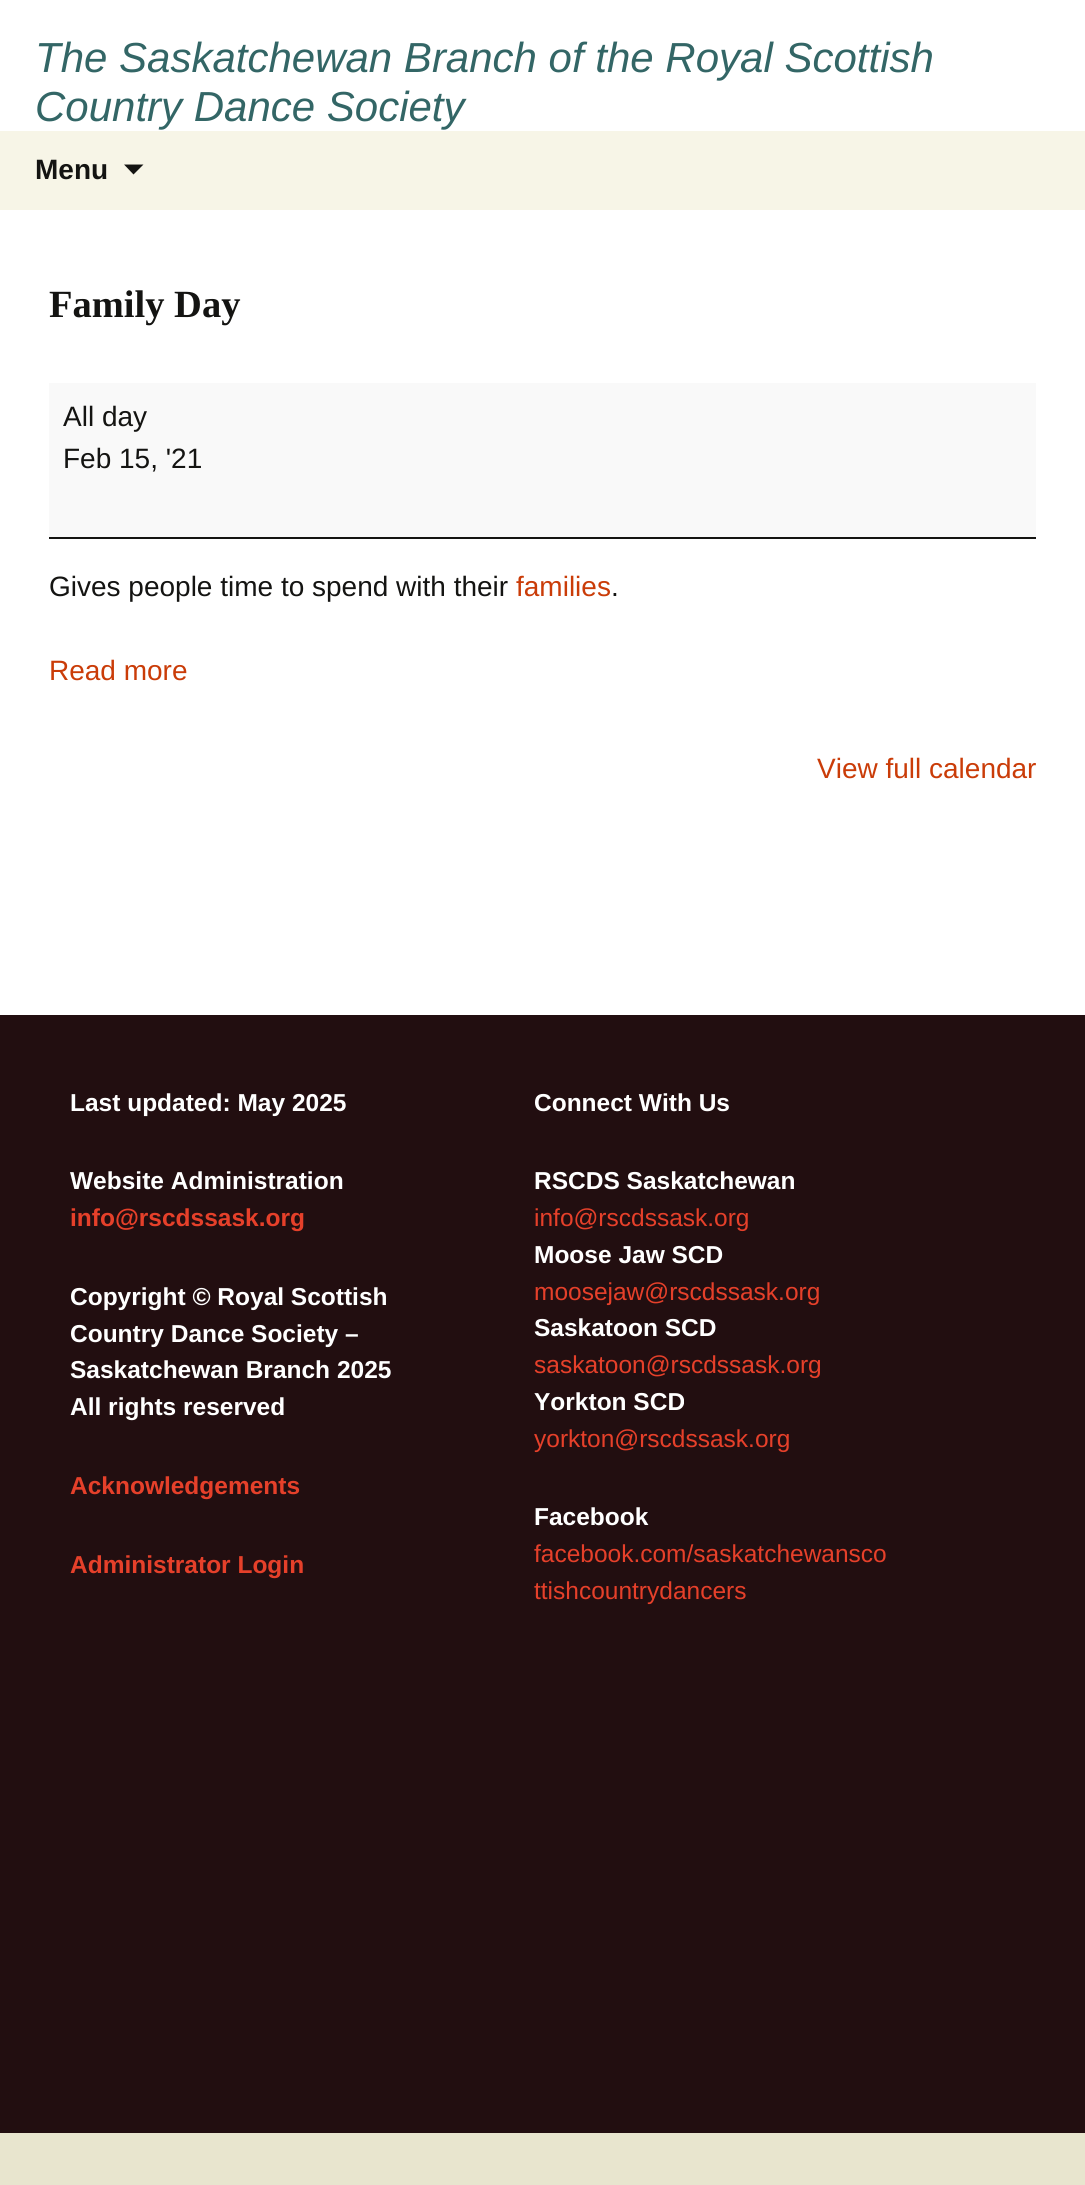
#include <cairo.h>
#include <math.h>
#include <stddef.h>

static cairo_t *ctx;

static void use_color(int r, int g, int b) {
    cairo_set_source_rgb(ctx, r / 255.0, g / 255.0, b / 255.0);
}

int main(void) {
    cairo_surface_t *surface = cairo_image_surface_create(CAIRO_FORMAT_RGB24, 1085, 2185);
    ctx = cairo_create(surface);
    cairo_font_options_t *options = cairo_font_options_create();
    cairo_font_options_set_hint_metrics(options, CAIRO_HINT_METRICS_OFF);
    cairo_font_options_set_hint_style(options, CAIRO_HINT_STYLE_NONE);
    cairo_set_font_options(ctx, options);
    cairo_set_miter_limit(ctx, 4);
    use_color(255, 255, 255);
    cairo_paint(ctx);
    cairo_select_font_face(ctx, "Liberation Sans", CAIRO_FONT_SLANT_ITALIC, CAIRO_FONT_WEIGHT_NORMAL);
    cairo_set_font_size(ctx, 42);
    use_color(51, 102, 102);
    cairo_move_to(ctx, 35, 72);
    cairo_show_text(ctx, "The Saskatchewan Branch of the Royal Scottish");
    cairo_move_to(ctx, 35, 121);
    cairo_show_text(ctx, "Country Dance Society");
    use_color(247, 245, 231);
    cairo_rectangle(ctx, 0, 131, 1085, 79);
    cairo_fill(ctx);
    cairo_select_font_face(ctx, "Liberation Sans", CAIRO_FONT_SLANT_NORMAL, CAIRO_FONT_WEIGHT_BOLD);
    cairo_set_font_size(ctx, 28);
    use_color(20, 20, 18);
    cairo_move_to(ctx, 35, 179);
    cairo_show_text(ctx, "Menu");
    cairo_new_path(ctx);
    cairo_move_to(ctx, 124, 164.5);
    cairo_line_to(ctx, 133.5, 174.5);
    cairo_line_to(ctx, 143.5, 164.5);
    cairo_close_path(ctx);
    cairo_fill(ctx);
    cairo_select_font_face(ctx, "Liberation Serif", CAIRO_FONT_SLANT_NORMAL, CAIRO_FONT_WEIGHT_BOLD);
    cairo_set_font_size(ctx, 38.5);
    cairo_move_to(ctx, 49, 317);
    cairo_show_text(ctx, "Family Day");
    use_color(249, 249, 249);
    cairo_rectangle(ctx, 49, 383, 987, 154);
    cairo_fill(ctx);
    use_color(20, 20, 18);
    cairo_rectangle(ctx, 49, 537, 987, 2);
    cairo_fill(ctx);
    cairo_select_font_face(ctx, "Liberation Sans", CAIRO_FONT_SLANT_NORMAL, CAIRO_FONT_WEIGHT_NORMAL);
    cairo_set_font_size(ctx, 28);
    cairo_move_to(ctx, 63, 426);
    cairo_show_text(ctx, "All day");
    cairo_move_to(ctx, 63, 468);
    cairo_show_text(ctx, "Feb 15, '21");
    cairo_move_to(ctx, 49, 596);
    cairo_show_text(ctx, "Gives people time to spend with their");
    use_color(202, 60, 8);
    cairo_move_to(ctx, 516, 596);
    cairo_show_text(ctx, "families");
    use_color(20, 20, 18);
    cairo_move_to(ctx, 611, 596);
    cairo_show_text(ctx, ".");
    use_color(202, 60, 8);
    cairo_move_to(ctx, 49, 680);
    cairo_show_text(ctx, "Read more");
    cairo_move_to(ctx, 817, 778);
    cairo_show_text(ctx, "View full calendar");
    use_color(232, 229, 206);
    cairo_rectangle(ctx, 0, 2133, 1085, 52);
    cairo_fill(ctx);
    use_color(34, 14, 16);
    cairo_rectangle(ctx, 0, 1015, 1085, 1118);
    cairo_fill(ctx);
    cairo_select_font_face(ctx, "Liberation Sans", CAIRO_FONT_SLANT_NORMAL, CAIRO_FONT_WEIGHT_BOLD);
    cairo_set_font_size(ctx, 24.5);
    use_color(255, 255, 255);
    cairo_move_to(ctx, 70, 1111);
    cairo_show_text(ctx, "Last updated: May 2025");
    cairo_move_to(ctx, 70, 1189);
    cairo_show_text(ctx, "Website Administration");
    use_color(230, 64, 42);
    cairo_move_to(ctx, 70, 1226);
    cairo_show_text(ctx, "info@rscdssask.org");
    use_color(255, 255, 255);
    cairo_move_to(ctx, 70, 1305);
    cairo_show_text(ctx, "Copyright © Royal Scottish");
    cairo_move_to(ctx, 70, 1342);
    cairo_show_text(ctx, "Country Dance Society –");
    cairo_move_to(ctx, 70, 1378);
    cairo_show_text(ctx, "Saskatchewan Branch 2025");
    cairo_move_to(ctx, 70, 1415);
    cairo_show_text(ctx, "All rights reserved");
    use_color(230, 64, 42);
    cairo_move_to(ctx, 70, 1494);
    cairo_show_text(ctx, "Acknowledgements");
    cairo_move_to(ctx, 70, 1573);
    cairo_show_text(ctx, "Administrator Login");
    use_color(255, 255, 255);
    cairo_move_to(ctx, 534, 1111);
    cairo_show_text(ctx, "Connect With Us");
    cairo_move_to(ctx, 534, 1189);
    cairo_show_text(ctx, "RSCDS Saskatchewan");
    cairo_select_font_face(ctx, "Liberation Sans", CAIRO_FONT_SLANT_NORMAL, CAIRO_FONT_WEIGHT_NORMAL);
    use_color(230, 64, 42);
    cairo_move_to(ctx, 534, 1226);
    cairo_show_text(ctx, "info@rscdssask.org");
    cairo_select_font_face(ctx, "Liberation Sans", CAIRO_FONT_SLANT_NORMAL, CAIRO_FONT_WEIGHT_BOLD);
    use_color(255, 255, 255);
    cairo_move_to(ctx, 534, 1263);
    cairo_show_text(ctx, "Moose Jaw SCD");
    cairo_select_font_face(ctx, "Liberation Sans", CAIRO_FONT_SLANT_NORMAL, CAIRO_FONT_WEIGHT_NORMAL);
    use_color(230, 64, 42);
    cairo_move_to(ctx, 534, 1300);
    cairo_show_text(ctx, "moosejaw@rscdssask.org");
    cairo_select_font_face(ctx, "Liberation Sans", CAIRO_FONT_SLANT_NORMAL, CAIRO_FONT_WEIGHT_BOLD);
    use_color(255, 255, 255);
    cairo_move_to(ctx, 534, 1336);
    cairo_show_text(ctx, "Saskatoon SCD");
    cairo_select_font_face(ctx, "Liberation Sans", CAIRO_FONT_SLANT_NORMAL, CAIRO_FONT_WEIGHT_NORMAL);
    use_color(230, 64, 42);
    cairo_move_to(ctx, 534, 1373);
    cairo_show_text(ctx, "saskatoon@rscdssask.org");
    cairo_select_font_face(ctx, "Liberation Sans", CAIRO_FONT_SLANT_NORMAL, CAIRO_FONT_WEIGHT_BOLD);
    use_color(255, 255, 255);
    cairo_move_to(ctx, 534, 1410);
    cairo_show_text(ctx, "Yorkton SCD");
    cairo_select_font_face(ctx, "Liberation Sans", CAIRO_FONT_SLANT_NORMAL, CAIRO_FONT_WEIGHT_NORMAL);
    use_color(230, 64, 42);
    cairo_move_to(ctx, 534, 1447);
    cairo_show_text(ctx, "yorkton@rscdssask.org");
    cairo_select_font_face(ctx, "Liberation Sans", CAIRO_FONT_SLANT_NORMAL, CAIRO_FONT_WEIGHT_BOLD);
    use_color(255, 255, 255);
    cairo_move_to(ctx, 534, 1525);
    cairo_show_text(ctx, "Facebook");
    cairo_select_font_face(ctx, "Liberation Sans", CAIRO_FONT_SLANT_NORMAL, CAIRO_FONT_WEIGHT_NORMAL);
    use_color(230, 64, 42);
    cairo_move_to(ctx, 534, 1562);
    cairo_show_text(ctx, "facebook.com/saskatchewansco");
    cairo_move_to(ctx, 534, 1599);
    cairo_show_text(ctx, "ttishcountrydancers");
    cairo_surface_write_to_png(surface, "result.png");
    cairo_font_options_destroy(options);
    cairo_destroy(ctx);
    cairo_surface_destroy(surface);
    return 0;
}
